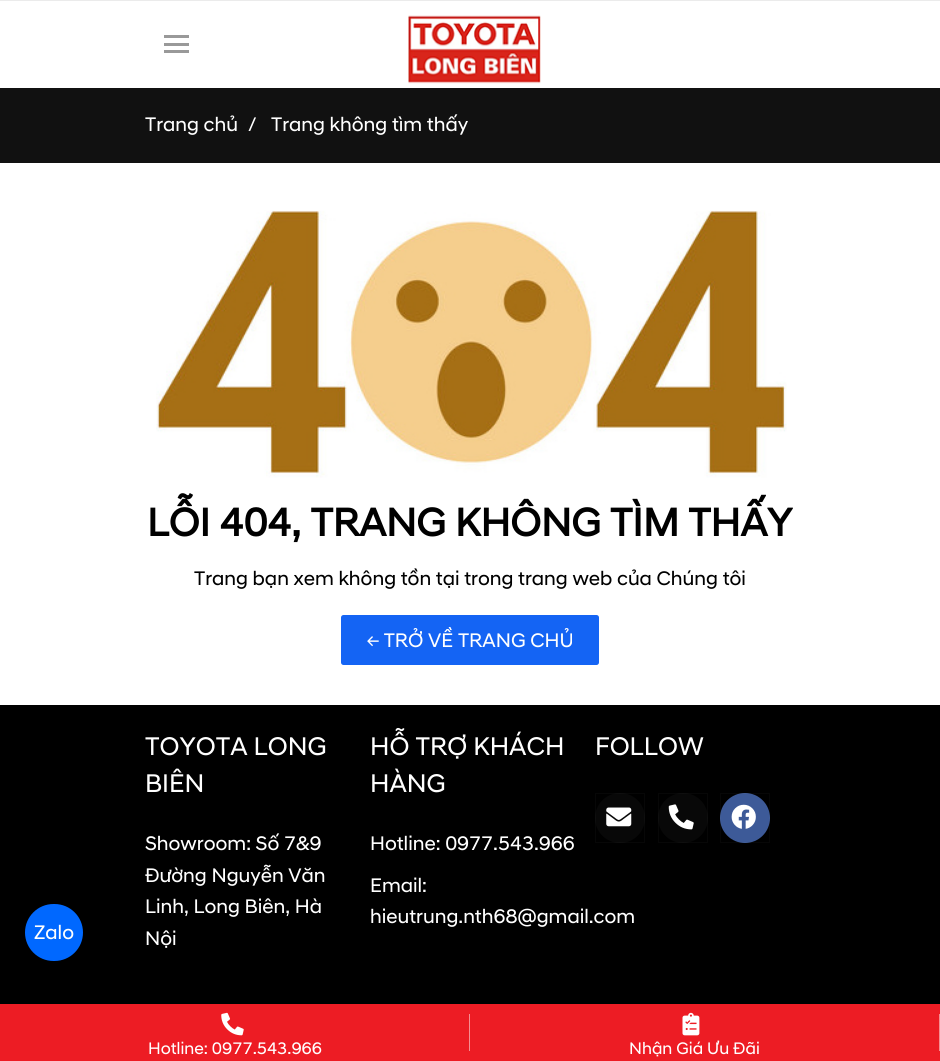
#include <cairo.h>
#include <math.h>
#include <stddef.h>

static cairo_t *ctx;

static void use_color(int r, int g, int b) {
    cairo_set_source_rgb(ctx, r / 255.0, g / 255.0, b / 255.0);
}

static void round_rect(double x, double y, double w, double h, double r) {
    cairo_new_sub_path(ctx);
    cairo_arc(ctx, x + w - r, y + h - r, r, 0, M_PI / 2);
    cairo_arc(ctx, x + r, y + h - r, r, M_PI / 2, M_PI);
    cairo_arc(ctx, x + r, y + r, r, M_PI, 1.5 * M_PI);
    cairo_arc(ctx, x + w - r, y + r, r, 1.5 * M_PI, 2 * M_PI);
    cairo_close_path(ctx);
}

static void picture(const char *path, double x, double y, double w, double h) {
    cairo_surface_t *image = cairo_image_surface_create_from_png(path);
    cairo_save(ctx);
    cairo_set_source_surface(ctx, image, x, y);
    cairo_rectangle(ctx, x, y, w, h);
    cairo_fill(ctx);
    cairo_restore(ctx);
    cairo_surface_destroy(image);
}

int main(void) {
    cairo_surface_t *surface = cairo_image_surface_create(CAIRO_FORMAT_RGB24, 940, 1061);
    ctx = cairo_create(surface);
    cairo_font_options_t *options = cairo_font_options_create();
    cairo_font_options_set_hint_metrics(options, CAIRO_HINT_METRICS_OFF);
    cairo_font_options_set_hint_style(options, CAIRO_HINT_STYLE_NONE);
    cairo_set_font_options(ctx, options);
    cairo_set_miter_limit(ctx, 4);
    use_color(255, 255, 255);
    cairo_paint(ctx);
    use_color(235, 235, 235);
    cairo_rectangle(ctx, 0, 0, 940, 1);
    cairo_fill(ctx);
    use_color(153, 153, 153);
    cairo_rectangle(ctx, 164, 43, 25, 3);
    cairo_fill(ctx);
    cairo_rectangle(ctx, 164, 35, 25, 3);
    cairo_fill(ctx);
    cairo_rectangle(ctx, 164, 50, 25, 3);
    cairo_fill(ctx);
    picture("img1.png", 408, 15, 133, 69);
    use_color(17, 17, 17);
    cairo_rectangle(ctx, 0, 88, 940, 75);
    cairo_fill(ctx);
    cairo_select_font_face(ctx, "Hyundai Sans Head", CAIRO_FONT_SLANT_NORMAL, CAIRO_FONT_WEIGHT_NORMAL);
    cairo_set_font_size(ctx, 20);
    use_color(255, 255, 255);
    cairo_move_to(ctx, 145, 131);
    cairo_show_text(ctx, "Trang chủ");
    cairo_move_to(ctx, 248, 131);
    cairo_show_text(ctx, "/");
    cairo_move_to(ctx, 271, 131);
    cairo_show_text(ctx, "Trang không tìm thấy");
    picture("img2.png", 156, 210, 631, 268);
    cairo_select_font_face(ctx, "Hyundai Sans Head", CAIRO_FONT_SLANT_NORMAL, CAIRO_FONT_WEIGHT_BOLD);
    cairo_set_font_size(ctx, 40);
    use_color(0, 0, 0);
    cairo_move_to(ctx, 147, 536);
    cairo_show_text(ctx, "LỖI 404, TRANG KHÔNG TÌM THẤY");
    cairo_select_font_face(ctx, "Hyundai Sans Head", CAIRO_FONT_SLANT_NORMAL, CAIRO_FONT_WEIGHT_NORMAL);
    cairo_set_font_size(ctx, 20);
    cairo_move_to(ctx, 194, 585);
    cairo_show_text(ctx, "Trang bạn xem không tồn tại trong trang web của Chúng tôi");
    use_color(20, 100, 244);
    round_rect(341, 615, 258, 50, 2.5);
    cairo_fill(ctx);
    use_color(255, 255, 255);
    cairo_move_to(ctx, 367, 647);
    cairo_show_text(ctx, "← TRỞ VỀ TRANG CHỦ");
    use_color(0, 0, 0);
    cairo_rectangle(ctx, 0, 705, 940, 299);
    cairo_fill(ctx);
    use_color(0, 104, 255);
    round_rect(25, 904, 58, 57, 28.5);
    cairo_fill(ctx);
    use_color(255, 255, 255);
    cairo_move_to(ctx, 34, 939);
    cairo_show_text(ctx, "Zalo");
    cairo_set_font_size(ctx, 26);
    cairo_move_to(ctx, 145, 755);
    cairo_show_text(ctx, "TOYOTA LONG");
    cairo_move_to(ctx, 145, 792);
    cairo_show_text(ctx, "BIÊN");
    cairo_set_font_size(ctx, 20);
    cairo_move_to(ctx, 145, 850);
    cairo_show_text(ctx, "Showroom: Số 7&9");
    cairo_move_to(ctx, 145, 882);
    cairo_show_text(ctx, "Đường Nguyễn Văn");
    cairo_move_to(ctx, 145, 913);
    cairo_show_text(ctx, "Linh, Long Biên, Hà");
    cairo_move_to(ctx, 145, 945);
    cairo_show_text(ctx, "Nội");
    cairo_set_font_size(ctx, 26);
    cairo_move_to(ctx, 370, 755);
    cairo_show_text(ctx, "HỖ TRỢ KHÁCH");
    cairo_move_to(ctx, 370, 792);
    cairo_show_text(ctx, "HÀNG");
    cairo_set_font_size(ctx, 20);
    cairo_move_to(ctx, 370, 850);
    cairo_show_text(ctx, "Hotline: 0977.543.966");
    cairo_move_to(ctx, 370, 892);
    cairo_show_text(ctx, "Email:");
    cairo_move_to(ctx, 370, 923);
    cairo_show_text(ctx, "hieutrung.nth68@gmail.com");
    cairo_set_font_size(ctx, 26);
    cairo_move_to(ctx, 595, 755);
    cairo_show_text(ctx, "FOLLOW");
    use_color(8, 8, 8);
    cairo_new_path(ctx);
    cairo_arc(ctx, 620, 818, 25, 0, 2 * M_PI);
    cairo_fill(ctx);
    picture("img3.png", 606, 807, 26, 20);
    cairo_rectangle(ctx, 595.5, 793.5, 49, 49);
    cairo_set_source_rgba(ctx, 1, 1, 1, 0.03);
    cairo_set_line_width(ctx, 1);
    cairo_stroke(ctx);
    use_color(8, 8, 8);
    cairo_arc(ctx, 683, 818, 25, 0, 2 * M_PI);
    cairo_fill(ctx);
    picture("img4.png", 668, 804, 26, 26);
    cairo_rectangle(ctx, 658.5, 793.5, 49, 49);
    cairo_set_source_rgba(ctx, 1, 1, 1, 0.03);
    cairo_stroke(ctx);
    use_color(61, 90, 152);
    cairo_arc(ctx, 745, 818, 25, 0, 2 * M_PI);
    cairo_fill(ctx);
    picture("img5.png", 731, 804, 25, 25);
    cairo_rectangle(ctx, 720.5, 793.5, 49, 49);
    cairo_set_source_rgba(ctx, 1, 1, 1, 0.03);
    cairo_stroke(ctx);
    use_color(237, 28, 36);
    cairo_rectangle(ctx, 0, 1004, 940, 57);
    cairo_fill(ctx);
    picture("img6.png", 221, 1012, 23, 24);
    use_color(246, 142, 146);
    cairo_rectangle(ctx, 469, 1014, 1, 37);
    cairo_fill(ctx);
    cairo_set_font_size(ctx, 17);
    use_color(255, 255, 255);
    cairo_move_to(ctx, 148, 1054);
    cairo_show_text(ctx, "Hotline: 0977.543.966");
    picture("img7.png", 682, 1012, 18, 24);
    use_color(246, 142, 146);
    cairo_rectangle(ctx, 939, 1014, 1, 37);
    cairo_fill(ctx);
    use_color(255, 255, 255);
    cairo_move_to(ctx, 629, 1054);
    cairo_show_text(ctx, "Nhận Giá Ưu Đãi");
    cairo_surface_write_to_png(surface, "result.png");
    cairo_font_options_destroy(options);
    cairo_destroy(ctx);
    cairo_surface_destroy(surface);
    return 0;
}
